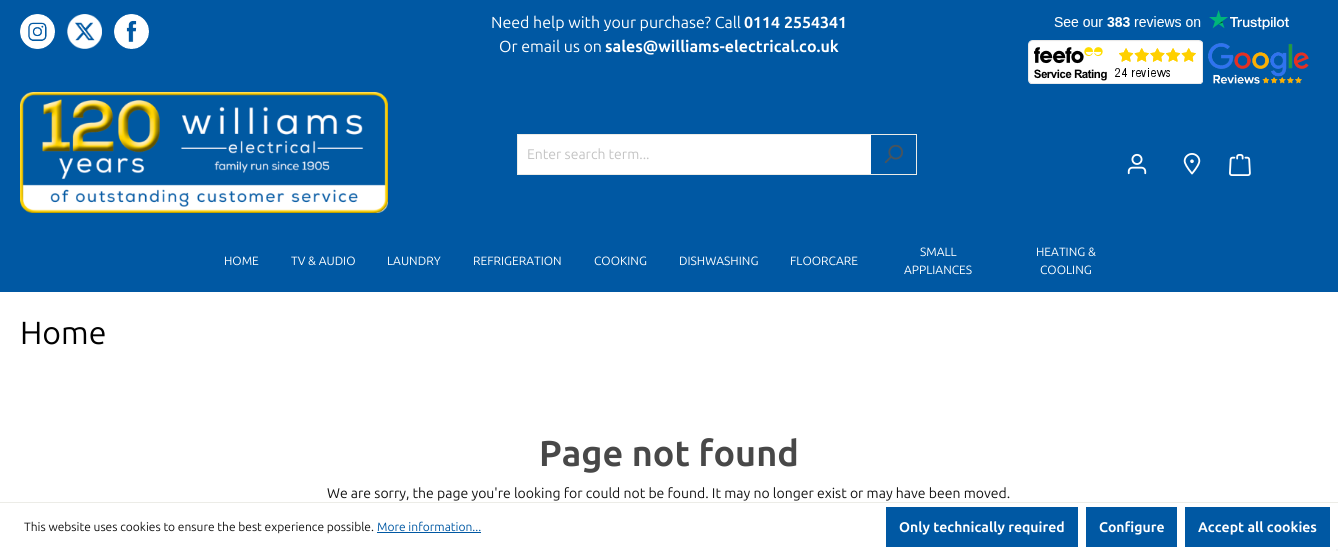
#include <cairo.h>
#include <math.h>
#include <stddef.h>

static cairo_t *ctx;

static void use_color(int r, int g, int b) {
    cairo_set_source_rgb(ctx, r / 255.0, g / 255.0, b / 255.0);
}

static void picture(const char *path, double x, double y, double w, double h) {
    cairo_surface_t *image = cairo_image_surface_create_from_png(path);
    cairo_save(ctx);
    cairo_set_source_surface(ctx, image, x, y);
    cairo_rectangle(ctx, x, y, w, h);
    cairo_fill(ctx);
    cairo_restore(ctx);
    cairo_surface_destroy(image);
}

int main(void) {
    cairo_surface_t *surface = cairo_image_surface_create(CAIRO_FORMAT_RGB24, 1338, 551);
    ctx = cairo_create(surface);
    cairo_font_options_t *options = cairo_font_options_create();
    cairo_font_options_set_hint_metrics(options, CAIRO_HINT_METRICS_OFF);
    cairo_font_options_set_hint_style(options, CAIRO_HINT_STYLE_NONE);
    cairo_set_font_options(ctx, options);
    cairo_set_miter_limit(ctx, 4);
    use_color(255, 255, 255);
    cairo_paint(ctx);
    use_color(0, 88, 163);
    cairo_rectangle(ctx, 0, 0, 1338, 225);
    cairo_fill(ctx);
    picture("img1.png", 20, 14, 35, 35);
    picture("img2.png", 67, 14, 35, 35);
    picture("img3.png", 114, 14, 35, 35);
    cairo_select_font_face(ctx, "Ubuntu", CAIRO_FONT_SLANT_NORMAL, CAIRO_FONT_WEIGHT_NORMAL);
    cairo_set_font_size(ctx, 16);
    use_color(255, 255, 255);
    cairo_move_to(ctx, 491, 28);
    cairo_show_text(ctx, "Need help with your purchase? Call");
    cairo_select_font_face(ctx, "Ubuntu", CAIRO_FONT_SLANT_NORMAL, CAIRO_FONT_WEIGHT_BOLD);
    cairo_move_to(ctx, 744, 28);
    cairo_show_text(ctx, "0114 2554341");
    cairo_select_font_face(ctx, "Ubuntu", CAIRO_FONT_SLANT_NORMAL, CAIRO_FONT_WEIGHT_NORMAL);
    cairo_move_to(ctx, 499, 52);
    cairo_show_text(ctx, "Or email us on");
    cairo_select_font_face(ctx, "Ubuntu", CAIRO_FONT_SLANT_NORMAL, CAIRO_FONT_WEIGHT_BOLD);
    cairo_move_to(ctx, 605, 52);
    cairo_show_text(ctx, "sales@williams-electrical.co.uk");
    picture("img4.png", 1054, 10, 235, 20);
    picture("img5.png", 1028, 40, 175, 44);
    picture("img6.png", 1208, 43, 101, 41);
    picture("img7.png", 20, 92, 368, 121);
    cairo_rectangle(ctx, 518, 135, 353, 39);
    cairo_fill(ctx);
    use_color(236, 236, 231);
    cairo_rectangle(ctx, 517, 134, 400, 1);
    cairo_fill(ctx);
    cairo_rectangle(ctx, 517, 174, 354, 1);
    cairo_fill(ctx);
    cairo_rectangle(ctx, 517, 134, 1, 41);
    cairo_fill(ctx);
    cairo_select_font_face(ctx, "Ubuntu", CAIRO_FONT_SLANT_NORMAL, CAIRO_FONT_WEIGHT_NORMAL);
    cairo_set_font_size(ctx, 14);
    use_color(195, 195, 195);
    cairo_move_to(ctx, 527, 159);
    cairo_show_text(ctx, "Enter search term...");
    use_color(236, 236, 231);
    cairo_rectangle(ctx, 916, 134, 1, 41);
    cairo_fill(ctx);
    cairo_rectangle(ctx, 870, 174, 47, 1);
    cairo_fill(ctx);
    picture("img8.png", 884, 144, 19, 20);
    picture("img9.png", 1127, 153, 20, 22);
    picture("img10.png", 1183, 153, 18, 22);
    picture("img11.png", 1229, 154, 22, 22);
    use_color(0, 88, 163);
    cairo_rectangle(ctx, 0, 225, 1338, 67);
    cairo_fill(ctx);
    cairo_set_font_size(ctx, 12);
    use_color(255, 255, 255);
    cairo_move_to(ctx, 224, 265);
    cairo_show_text(ctx, "HOME");
    cairo_move_to(ctx, 291, 265);
    cairo_show_text(ctx, "TV & AUDIO");
    cairo_move_to(ctx, 387, 265);
    cairo_show_text(ctx, "LAUNDRY");
    cairo_move_to(ctx, 473, 265);
    cairo_show_text(ctx, "REFRIGERATION");
    cairo_move_to(ctx, 594, 265);
    cairo_show_text(ctx, "COOKING");
    cairo_move_to(ctx, 679, 265);
    cairo_show_text(ctx, "DISHWASHING");
    cairo_move_to(ctx, 790, 265);
    cairo_show_text(ctx, "FLOORCARE");
    cairo_move_to(ctx, 920, 256);
    cairo_show_text(ctx, "SMALL");
    cairo_move_to(ctx, 904, 274);
    cairo_show_text(ctx, "APPLIANCES");
    cairo_move_to(ctx, 1036, 256);
    cairo_show_text(ctx, "HEATING &");
    cairo_move_to(ctx, 1040, 274);
    cairo_show_text(ctx, "COOLING");
    cairo_set_font_size(ctx, 32);
    use_color(0, 0, 0);
    cairo_move_to(ctx, 20, 344);
    cairo_show_text(ctx, "Home");
    cairo_select_font_face(ctx, "Ubuntu", CAIRO_FONT_SLANT_NORMAL, CAIRO_FONT_WEIGHT_BOLD);
    cairo_set_font_size(ctx, 36);
    use_color(72, 72, 72);
    cairo_move_to(ctx, 539, 466);
    cairo_show_text(ctx, "Page not found");
    cairo_select_font_face(ctx, "Ubuntu", CAIRO_FONT_SLANT_NORMAL, CAIRO_FONT_WEIGHT_NORMAL);
    cairo_set_font_size(ctx, 14);
    use_color(19, 19, 19);
    cairo_move_to(ctx, 327, 498);
    cairo_show_text(ctx, "We are sorry, the page you're looking for could not be found. It may no longer exist or may have been moved.");
    use_color(236, 236, 231);
    cairo_rectangle(ctx, 0, 502, 1338, 1);
    cairo_fill(ctx);
    cairo_set_font_size(ctx, 12);
    use_color(19, 19, 19);
    cairo_move_to(ctx, 24, 531);
    cairo_show_text(ctx, "This website uses cookies to ensure the best experience possible.");
    use_color(0, 88, 163);
    cairo_move_to(ctx, 377, 531);
    cairo_show_text(ctx, "More information...");
    cairo_rectangle(ctx, 377, 532, 104, 1);
    cairo_fill(ctx);
    cairo_rectangle(ctx, 886, 507, 192, 40);
    cairo_fill(ctx);
    cairo_select_font_face(ctx, "Ubuntu", CAIRO_FONT_SLANT_NORMAL, CAIRO_FONT_WEIGHT_BOLD);
    cairo_set_font_size(ctx, 14);
    use_color(255, 255, 255);
    cairo_move_to(ctx, 899, 532);
    cairo_show_text(ctx, "Only technically required");
    use_color(0, 88, 163);
    cairo_rectangle(ctx, 1086, 507, 91, 40);
    cairo_fill(ctx);
    use_color(255, 255, 255);
    cairo_move_to(ctx, 1099, 532);
    cairo_show_text(ctx, "Configure");
    use_color(0, 88, 163);
    cairo_rectangle(ctx, 1185, 507, 145, 40);
    cairo_fill(ctx);
    use_color(255, 255, 255);
    cairo_move_to(ctx, 1198, 532);
    cairo_show_text(ctx, "Accept all cookies");
    use_color(245, 245, 245);
    cairo_rectangle(ctx, 1336, 549, 2, 2);
    cairo_fill(ctx);
    cairo_surface_write_to_png(surface, "result.png");
    cairo_font_options_destroy(options);
    cairo_destroy(ctx);
    cairo_surface_destroy(surface);
    return 0;
}
